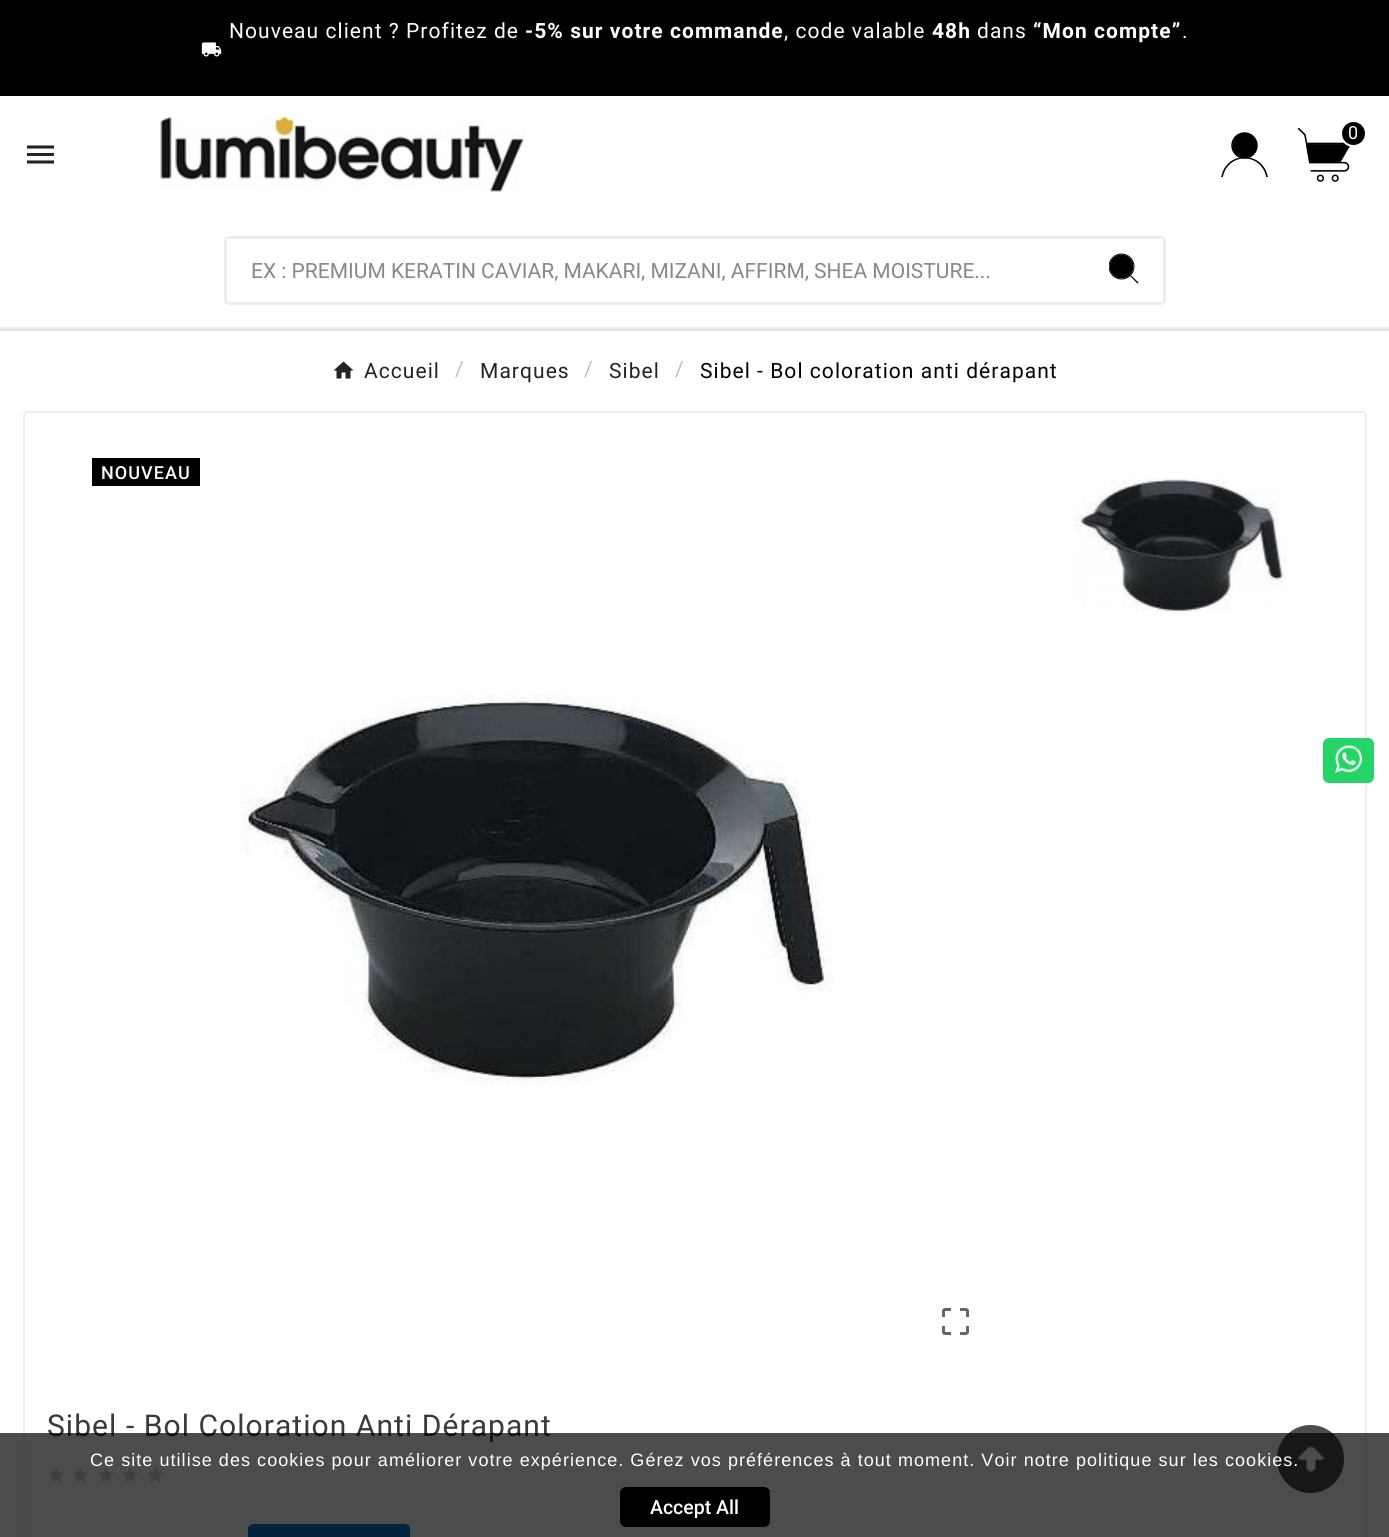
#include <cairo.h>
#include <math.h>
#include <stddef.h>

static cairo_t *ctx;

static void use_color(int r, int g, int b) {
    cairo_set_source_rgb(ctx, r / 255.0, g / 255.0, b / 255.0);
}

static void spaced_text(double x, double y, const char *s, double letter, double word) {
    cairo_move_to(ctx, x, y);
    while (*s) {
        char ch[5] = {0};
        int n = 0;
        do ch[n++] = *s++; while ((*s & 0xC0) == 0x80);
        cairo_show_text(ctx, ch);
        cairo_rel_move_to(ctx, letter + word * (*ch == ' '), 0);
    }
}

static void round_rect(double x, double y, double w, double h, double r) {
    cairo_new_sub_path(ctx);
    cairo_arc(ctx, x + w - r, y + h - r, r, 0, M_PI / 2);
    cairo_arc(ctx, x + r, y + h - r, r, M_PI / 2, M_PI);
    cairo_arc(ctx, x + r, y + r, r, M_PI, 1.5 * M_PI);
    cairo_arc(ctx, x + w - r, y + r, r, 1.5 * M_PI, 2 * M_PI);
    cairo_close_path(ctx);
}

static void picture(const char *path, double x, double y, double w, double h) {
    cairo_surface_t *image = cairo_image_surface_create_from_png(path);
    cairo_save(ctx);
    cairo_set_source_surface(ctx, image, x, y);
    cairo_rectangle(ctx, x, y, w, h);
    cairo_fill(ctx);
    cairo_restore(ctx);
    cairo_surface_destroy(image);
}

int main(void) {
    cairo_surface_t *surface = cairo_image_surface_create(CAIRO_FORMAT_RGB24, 1389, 1537);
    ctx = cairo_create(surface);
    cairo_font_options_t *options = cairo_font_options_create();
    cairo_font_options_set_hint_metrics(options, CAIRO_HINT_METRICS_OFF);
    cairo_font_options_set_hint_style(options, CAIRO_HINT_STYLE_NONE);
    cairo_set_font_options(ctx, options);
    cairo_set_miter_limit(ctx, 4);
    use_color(255, 255, 255);
    cairo_paint(ctx);
    use_color(229, 229, 229);
    cairo_rectangle(ctx, 0, 329, 1389, 2);
    cairo_fill(ctx);
    use_color(237, 237, 237);
    cairo_rectangle(ctx, 0, 327, 1389, 2);
    cairo_fill(ctx);
    use_color(0, 0, 0);
    cairo_rectangle(ctx, 0, 0, 1389, 96);
    cairo_fill(ctx);
    cairo_select_font_face(ctx, "Roboto", CAIRO_FONT_SLANT_NORMAL, CAIRO_FONT_WEIGHT_NORMAL);
    cairo_set_font_size(ctx, 21);
    use_color(255, 255, 255);
    spaced_text(229, 38, "Nouveau client ? Profitez de", 1.05, 0);
    cairo_select_font_face(ctx, "Roboto", CAIRO_FONT_SLANT_NORMAL, CAIRO_FONT_WEIGHT_BOLD);
    spaced_text(525, 38, "-5% sur votre commande", 1.05, 0);
    cairo_select_font_face(ctx, "Roboto", CAIRO_FONT_SLANT_NORMAL, CAIRO_FONT_WEIGHT_NORMAL);
    spaced_text(784, 38, ", code valable", 1.05, 0);
    cairo_select_font_face(ctx, "Roboto", CAIRO_FONT_SLANT_NORMAL, CAIRO_FONT_WEIGHT_BOLD);
    spaced_text(932, 38, "48h", 1.05, 0);
    cairo_select_font_face(ctx, "Roboto", CAIRO_FONT_SLANT_NORMAL, CAIRO_FONT_WEIGHT_NORMAL);
    spaced_text(977, 38, "dans", 1.05, 0);
    cairo_select_font_face(ctx, "Roboto", CAIRO_FONT_SLANT_NORMAL, CAIRO_FONT_WEIGHT_BOLD);
    spaced_text(1033, 38, "“Mon compte”", 1.05, 0);
    cairo_select_font_face(ctx, "Roboto", CAIRO_FONT_SLANT_NORMAL, CAIRO_FONT_WEIGHT_NORMAL);
    spaced_text(1182, 38, ".", 1.05, 0);
    picture("img1.png", 201, 42, 21, 15);
    picture("img2.png", 160, 117, 365, 75);
    picture("img3.png", 1221, 132, 47, 45);
    picture("img4.png", 1298, 128, 52, 54);
    use_color(0, 0, 0);
    cairo_arc(ctx, 1353.5, 133.5, 12.5, 0, 2 * M_PI);
    cairo_fill_preserve(ctx);
    use_color(255, 255, 255);
    cairo_stroke(ctx);
    cairo_set_font_size(ctx, 18);
    cairo_move_to(ctx, 1348, 139);
    cairo_show_text(ctx, "0");
    picture("img5.png", 27, 145, 27, 19);
    round_rect(225.5, 237.5, 939, 66, 3.5);
    use_color(237, 237, 237);
    cairo_set_line_width(ctx, 3);
    cairo_stroke(ctx);
    use_color(255, 255, 255);
    cairo_rectangle(ctx, 227, 239, 1, 63);
    cairo_fill(ctx);
    cairo_set_font_size(ctx, 21);
    use_color(136, 136, 136);
    cairo_move_to(ctx, 251, 278);
    cairo_show_text(ctx, "EX : PREMIUM KERATIN CAVIAR, MAKARI, MIZANI, AFFIRM, SHEA MOISTURE...");
    use_color(255, 255, 255);
    cairo_rectangle(ctx, 1162, 239, 1, 63);
    cairo_fill(ctx);
    use_color(0, 0, 0);
    cairo_new_path(ctx);
    cairo_move_to(ctx, 1137.5, 283.5);
    cairo_line_to(ctx, 1130, 276);
    cairo_line_to(ctx, 1130.5, 275);
    cairo_line_to(ctx, 1138.5, 282.5);
    cairo_close_path(ctx);
    cairo_fill(ctx);
    cairo_arc(ctx, 1121.5, 266.5, 12, 0, 2 * M_PI);
    cairo_fill(ctx);
    cairo_save(ctx);
    cairo_rectangle(ctx, 1109, 252, 30, 33);
    cairo_clip(ctx);
    cairo_arc(ctx, 1121.5, 266.5, 12.5, 0, 2 * M_PI);
    cairo_set_line_width(ctx, 1);
    cairo_stroke(ctx);
    cairo_restore(ctx);
    picture("img6.png", 333, 361, 21, 18);
    use_color(35, 35, 35);
    spaced_text(364, 378, "Accueil", 1.05, 0);
    use_color(189, 189, 189);
    spaced_text(455, 376, "/", 1.05, 0);
    use_color(35, 35, 35);
    spaced_text(480, 378, "Marques", 1.05, 0);
    use_color(189, 189, 189);
    spaced_text(584, 376, "/", 1.05, 0);
    use_color(35, 35, 35);
    spaced_text(609, 378, "Sibel", 1.05, 0);
    use_color(189, 189, 189);
    spaced_text(675, 376, "/", 1.05, 0);
    use_color(0, 0, 0);
    spaced_text(700, 378, "Sibel - Bol coloration anti dérapant", 1.05, 0);
    round_rect(24, 412, 1342, 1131, 4);
    use_color(237, 237, 237);
    cairo_set_line_width(ctx, 2);
    cairo_stroke(ctx);
    use_color(0, 0, 0);
    cairo_rectangle(ctx, 92, 458, 108, 28);
    cairo_fill(ctx);
    cairo_select_font_face(ctx, "Roboto Medium", CAIRO_FONT_SLANT_NORMAL, CAIRO_FONT_WEIGHT_NORMAL);
    cairo_set_font_size(ctx, 18);
    use_color(255, 255, 255);
    spaced_text(101, 479, "NOUVEAU", 1.05, 0);
    picture("img7.png", 240, 693, 594, 392);
    picture("img8.png", 942, 1308, 27, 27);
    picture("img9.png", 1074, 478, 213, 135);
    cairo_select_font_face(ctx, "Roboto", CAIRO_FONT_SLANT_NORMAL, CAIRO_FONT_WEIGHT_NORMAL);
    cairo_set_font_size(ctx, 30);
    use_color(58, 58, 58);
    spaced_text(47, 1436, "Sibel - Bol Coloration Anti Dérapant", 1.05, 0);
    picture("img10.png", 48, 1467, 17, 16);
    picture("img10.png", 72, 1467, 17, 16);
    picture("img11.png", 98, 1467, 16, 16);
    picture("img11.png", 122, 1467, 16, 16);
    picture("img10.png", 147, 1467, 17, 16);
    use_color(11, 122, 203);
    round_rect(248, 1524, 162, 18, 5);
    cairo_fill(ctx);
    use_color(76, 76, 76);
    round_rect(1277, 1425, 67, 68, 33.5);
    cairo_fill(ctx);
    picture("img12.png", 1297, 1445, 28, 27);
    use_color(37, 211, 102);
    round_rect(1323, 738, 51, 45, 6);
    cairo_fill(ctx);
    picture("img13.png", 1335, 745, 27, 28);
    cairo_set_source_rgba(ctx, 0, 0, 0, 0.7);
    cairo_rectangle(ctx, 0, 1433, 1389, 104);
    cairo_fill(ctx);
    cairo_select_font_face(ctx, "Liberation Sans", CAIRO_FONT_SLANT_NORMAL, CAIRO_FONT_WEIGHT_NORMAL);
    cairo_set_font_size(ctx, 18);
    use_color(255, 255, 255);
    spaced_text(90, 1466, "Ce site utilise des cookies pour améliorer votre expérience. Gérez vos préférences à tout moment. Voir notre politique sur les cookies.", 1.05, 0);
    use_color(0, 0, 0);
    round_rect(620, 1487, 150, 40, 6);
    cairo_fill(ctx);
    cairo_select_font_face(ctx, "Roboto Medium", CAIRO_FONT_SLANT_NORMAL, CAIRO_FONT_WEIGHT_NORMAL);
    cairo_set_font_size(ctx, 19.5);
    use_color(255, 255, 255);
    cairo_move_to(ctx, 650, 1514);
    cairo_show_text(ctx, "Accept All");
    cairo_surface_write_to_png(surface, "result.png");
    cairo_font_options_destroy(options);
    cairo_destroy(ctx);
    cairo_surface_destroy(surface);
    return 0;
}
